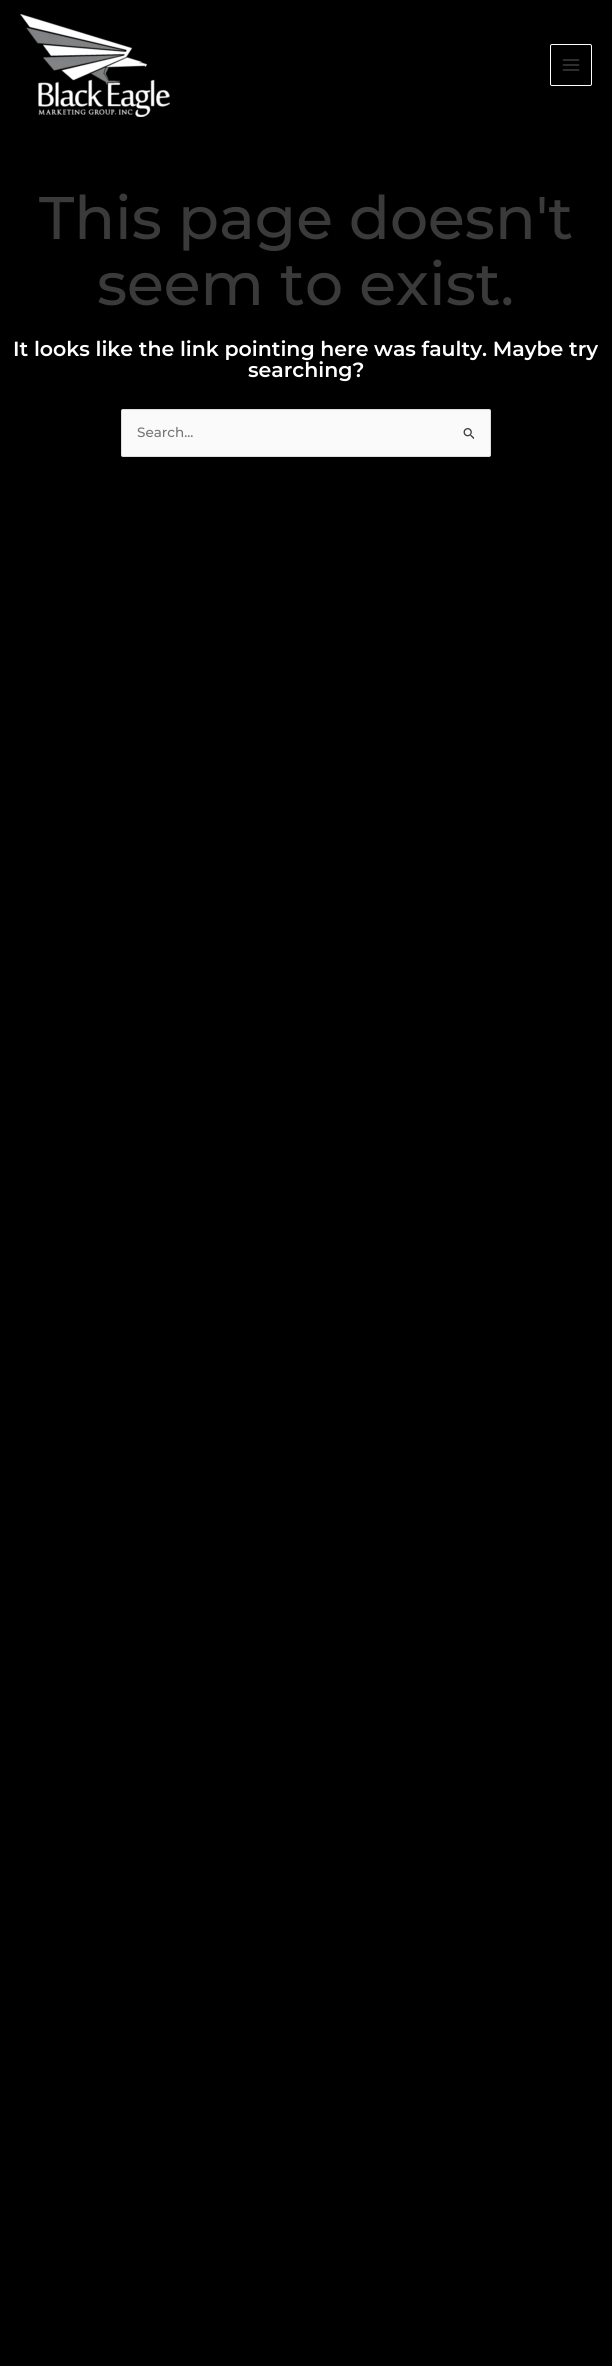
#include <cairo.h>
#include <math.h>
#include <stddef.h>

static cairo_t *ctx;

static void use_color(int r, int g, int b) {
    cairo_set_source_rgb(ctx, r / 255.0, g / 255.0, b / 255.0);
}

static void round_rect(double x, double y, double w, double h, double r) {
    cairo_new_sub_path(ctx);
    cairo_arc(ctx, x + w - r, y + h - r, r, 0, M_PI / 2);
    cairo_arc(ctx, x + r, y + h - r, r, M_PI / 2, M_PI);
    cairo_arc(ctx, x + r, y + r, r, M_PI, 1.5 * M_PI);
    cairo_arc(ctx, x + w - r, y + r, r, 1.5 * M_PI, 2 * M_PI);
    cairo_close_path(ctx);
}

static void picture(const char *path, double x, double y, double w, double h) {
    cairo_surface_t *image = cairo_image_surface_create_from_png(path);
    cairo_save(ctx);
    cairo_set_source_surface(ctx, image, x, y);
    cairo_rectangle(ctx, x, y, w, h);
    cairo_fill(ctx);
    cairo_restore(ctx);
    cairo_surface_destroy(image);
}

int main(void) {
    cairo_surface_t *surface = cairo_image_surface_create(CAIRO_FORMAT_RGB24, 612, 2366);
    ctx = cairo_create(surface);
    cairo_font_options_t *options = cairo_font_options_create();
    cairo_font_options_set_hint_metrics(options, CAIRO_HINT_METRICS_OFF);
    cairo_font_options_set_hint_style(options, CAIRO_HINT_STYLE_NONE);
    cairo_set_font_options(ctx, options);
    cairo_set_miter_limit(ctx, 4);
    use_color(0, 0, 0);
    cairo_paint(ctx);
    picture("img1.png", 20, 14, 150, 103);
    round_rect(550.5, 44.5, 41, 41, 1.5);
    use_color(255, 255, 255);
    cairo_set_line_width(ctx, 1);
    cairo_stroke(ctx);
    picture("img2.png", 562, 59, 18, 12);
    cairo_select_font_face(ctx, "Montserrat Medium", CAIRO_FONT_SLANT_NORMAL, CAIRO_FONT_WEIGHT_NORMAL);
    cairo_set_font_size(ctx, 60);
    use_color(58, 58, 58);
    cairo_move_to(ctx, 39, 239);
    cairo_show_text(ctx, "This page doesn't");
    cairo_move_to(ctx, 97, 305);
    cairo_show_text(ctx, "seem to exist.");
    cairo_select_font_face(ctx, "Montserrat SemiBold", CAIRO_FONT_SLANT_NORMAL, CAIRO_FONT_WEIGHT_NORMAL);
    cairo_set_font_size(ctx, 20.5);
    use_color(255, 255, 255);
    cairo_move_to(ctx, 13, 356);
    cairo_show_text(ctx, "It looks like the link pointing here was faulty. Maybe try");
    cairo_move_to(ctx, 248, 377);
    cairo_show_text(ctx, "searching?");
    use_color(250, 250, 250);
    round_rect(121.5, 409.5, 369, 47, 1.5);
    cairo_fill_preserve(ctx);
    use_color(221, 221, 221);
    cairo_stroke(ctx);
    cairo_select_font_face(ctx, "Montserrat Medium", CAIRO_FONT_SLANT_NORMAL, CAIRO_FONT_WEIGHT_NORMAL);
    cairo_set_font_size(ctx, 13.5);
    use_color(117, 117, 117);
    cairo_move_to(ctx, 137, 437);
    cairo_show_text(ctx, "Search...");
    picture("img3.png", 463, 428, 11, 11);
    cairo_surface_write_to_png(surface, "result.png");
    cairo_font_options_destroy(options);
    cairo_destroy(ctx);
    cairo_surface_destroy(surface);
    return 0;
}
